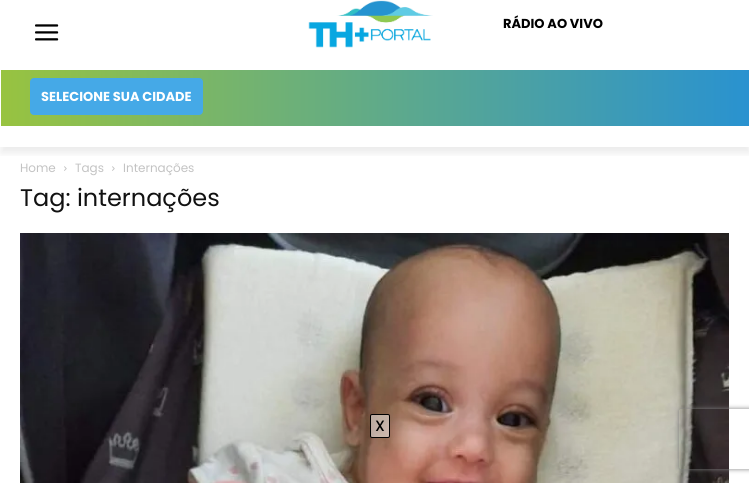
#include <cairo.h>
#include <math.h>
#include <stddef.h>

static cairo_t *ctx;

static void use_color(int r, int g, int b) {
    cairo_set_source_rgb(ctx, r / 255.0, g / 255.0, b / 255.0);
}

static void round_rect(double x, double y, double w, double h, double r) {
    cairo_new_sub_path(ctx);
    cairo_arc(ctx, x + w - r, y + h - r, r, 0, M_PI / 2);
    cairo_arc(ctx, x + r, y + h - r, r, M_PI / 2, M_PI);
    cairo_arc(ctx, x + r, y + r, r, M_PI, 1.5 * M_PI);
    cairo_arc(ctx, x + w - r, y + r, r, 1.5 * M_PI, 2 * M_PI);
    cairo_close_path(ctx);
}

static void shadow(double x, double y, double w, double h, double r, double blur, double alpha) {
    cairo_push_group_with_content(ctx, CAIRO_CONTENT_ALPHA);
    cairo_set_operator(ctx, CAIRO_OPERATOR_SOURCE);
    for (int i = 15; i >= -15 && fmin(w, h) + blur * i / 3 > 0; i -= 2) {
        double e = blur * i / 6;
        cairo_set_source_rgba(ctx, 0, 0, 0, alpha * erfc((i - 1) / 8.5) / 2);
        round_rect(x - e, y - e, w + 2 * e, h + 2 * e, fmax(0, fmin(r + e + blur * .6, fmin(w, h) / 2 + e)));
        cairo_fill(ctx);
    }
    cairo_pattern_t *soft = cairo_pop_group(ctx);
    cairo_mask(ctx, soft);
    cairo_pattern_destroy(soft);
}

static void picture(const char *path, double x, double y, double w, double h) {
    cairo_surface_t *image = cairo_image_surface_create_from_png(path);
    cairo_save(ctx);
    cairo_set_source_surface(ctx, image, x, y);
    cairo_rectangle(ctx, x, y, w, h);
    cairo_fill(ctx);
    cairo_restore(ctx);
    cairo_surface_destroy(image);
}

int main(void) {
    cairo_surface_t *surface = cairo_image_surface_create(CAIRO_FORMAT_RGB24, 749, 483);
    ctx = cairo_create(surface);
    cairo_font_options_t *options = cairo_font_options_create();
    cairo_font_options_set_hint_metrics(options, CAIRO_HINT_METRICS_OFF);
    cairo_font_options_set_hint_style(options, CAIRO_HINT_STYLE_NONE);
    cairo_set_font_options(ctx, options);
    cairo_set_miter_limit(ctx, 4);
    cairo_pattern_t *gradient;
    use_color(255, 255, 255);
    cairo_paint(ctx);
    picture("img2.png", 35, 24, 24, 17);
    gradient = cairo_pattern_create_linear(0.5, 98, 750, 98);
    cairo_pattern_add_color_stop_rgba(gradient, 0, 0.596, 0.765, 0.251, 1);
    cairo_pattern_add_color_stop_rgba(gradient, 1, 0.161, 0.573, 0.816, 1);
    cairo_set_source(ctx, gradient);
    cairo_pattern_destroy(gradient);
    cairo_rectangle(ctx, 1, 70, 748, 56);
    cairo_fill(ctx);
    cairo_save(ctx);
    cairo_rectangle(ctx, 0, 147, 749, 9);
    cairo_clip(ctx);
    use_color(0, 0, 0);
    shadow(1, 6, 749, 147, 0, 4, 0.08);
    cairo_restore(ctx);
    picture("img1.png", 308, 0, 125, 48);
    cairo_select_font_face(ctx, "Poppins", CAIRO_FONT_SLANT_NORMAL, CAIRO_FONT_WEIGHT_BOLD);
    cairo_set_font_size(ctx, 13);
    use_color(0, 0, 0);
    cairo_move_to(ctx, 503, 28);
    cairo_show_text(ctx, "RÁDIO AO VIVO");
    use_color(69, 169, 231);
    round_rect(30, 78, 173, 37, 4);
    cairo_fill(ctx);
    use_color(255, 255, 255);
    cairo_move_to(ctx, 41, 101);
    cairo_show_text(ctx, "SELECIONE SUA CIDADE");
    cairo_select_font_face(ctx, "Poppins", CAIRO_FONT_SLANT_NORMAL, CAIRO_FONT_WEIGHT_NORMAL);
    cairo_set_font_size(ctx, 12);
    use_color(195, 195, 195);
    cairo_move_to(ctx, 20, 172);
    cairo_show_text(ctx, "Home");
    picture("img3.png", 64, 166, 3, 5);
    cairo_move_to(ctx, 75, 172);
    cairo_show_text(ctx, "Tags");
    picture("img3.png", 112, 166, 3, 5);
    cairo_move_to(ctx, 123, 172);
    cairo_show_text(ctx, "Internações");
    cairo_set_font_size(ctx, 24);
    use_color(17, 17, 17);
    cairo_move_to(ctx, 20, 206);
    cairo_show_text(ctx, "Tag: internações");
    picture("img4.png", 20, 233, 709, 250);
    cairo_set_source_rgba(ctx, 1, 1, 1, 0.5);
    round_rect(370.5, 414.5, 19, 23, 1.5);
    cairo_fill_preserve(ctx);
    use_color(0, 0, 0);
    cairo_set_line_width(ctx, 1);
    cairo_stroke(ctx);
    cairo_select_font_face(ctx, "Poppins Medium", CAIRO_FONT_SLANT_NORMAL, CAIRO_FONT_WEIGHT_NORMAL);
    cairo_set_font_size(ctx, 15);
    cairo_move_to(ctx, 375, 431);
    cairo_show_text(ctx, "X");
    cairo_save(ctx);
    cairo_set_fill_rule(ctx, CAIRO_FILL_RULE_EVEN_ODD);
    cairo_new_path(ctx);
    cairo_move_to(ctx, 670, 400);
    cairo_line_to(ctx, 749, 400);
    cairo_line_to(ctx, 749, 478);
    cairo_line_to(ctx, 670, 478);
    cairo_close_path(ctx);
    cairo_move_to(ctx, 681, 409);
    cairo_line_to(ctx, 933, 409);
    cairo_curve_to(ctx, 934, 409, 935, 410, 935, 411);
    cairo_line_to(ctx, 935, 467);
    cairo_curve_to(ctx, 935, 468, 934, 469, 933, 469);
    cairo_line_to(ctx, 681, 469);
    cairo_curve_to(ctx, 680, 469, 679, 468, 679, 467);
    cairo_line_to(ctx, 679, 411);
    cairo_curve_to(ctx, 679, 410, 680, 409, 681, 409);
    cairo_close_path(ctx);
    cairo_clip(ctx);
    use_color(128, 128, 128);
    shadow(679, 409, 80, 60, 2, 2.5, 1);
    cairo_restore(ctx);
    cairo_surface_write_to_png(surface, "result.png");
    cairo_font_options_destroy(options);
    cairo_destroy(ctx);
    cairo_surface_destroy(surface);
    return 0;
}
